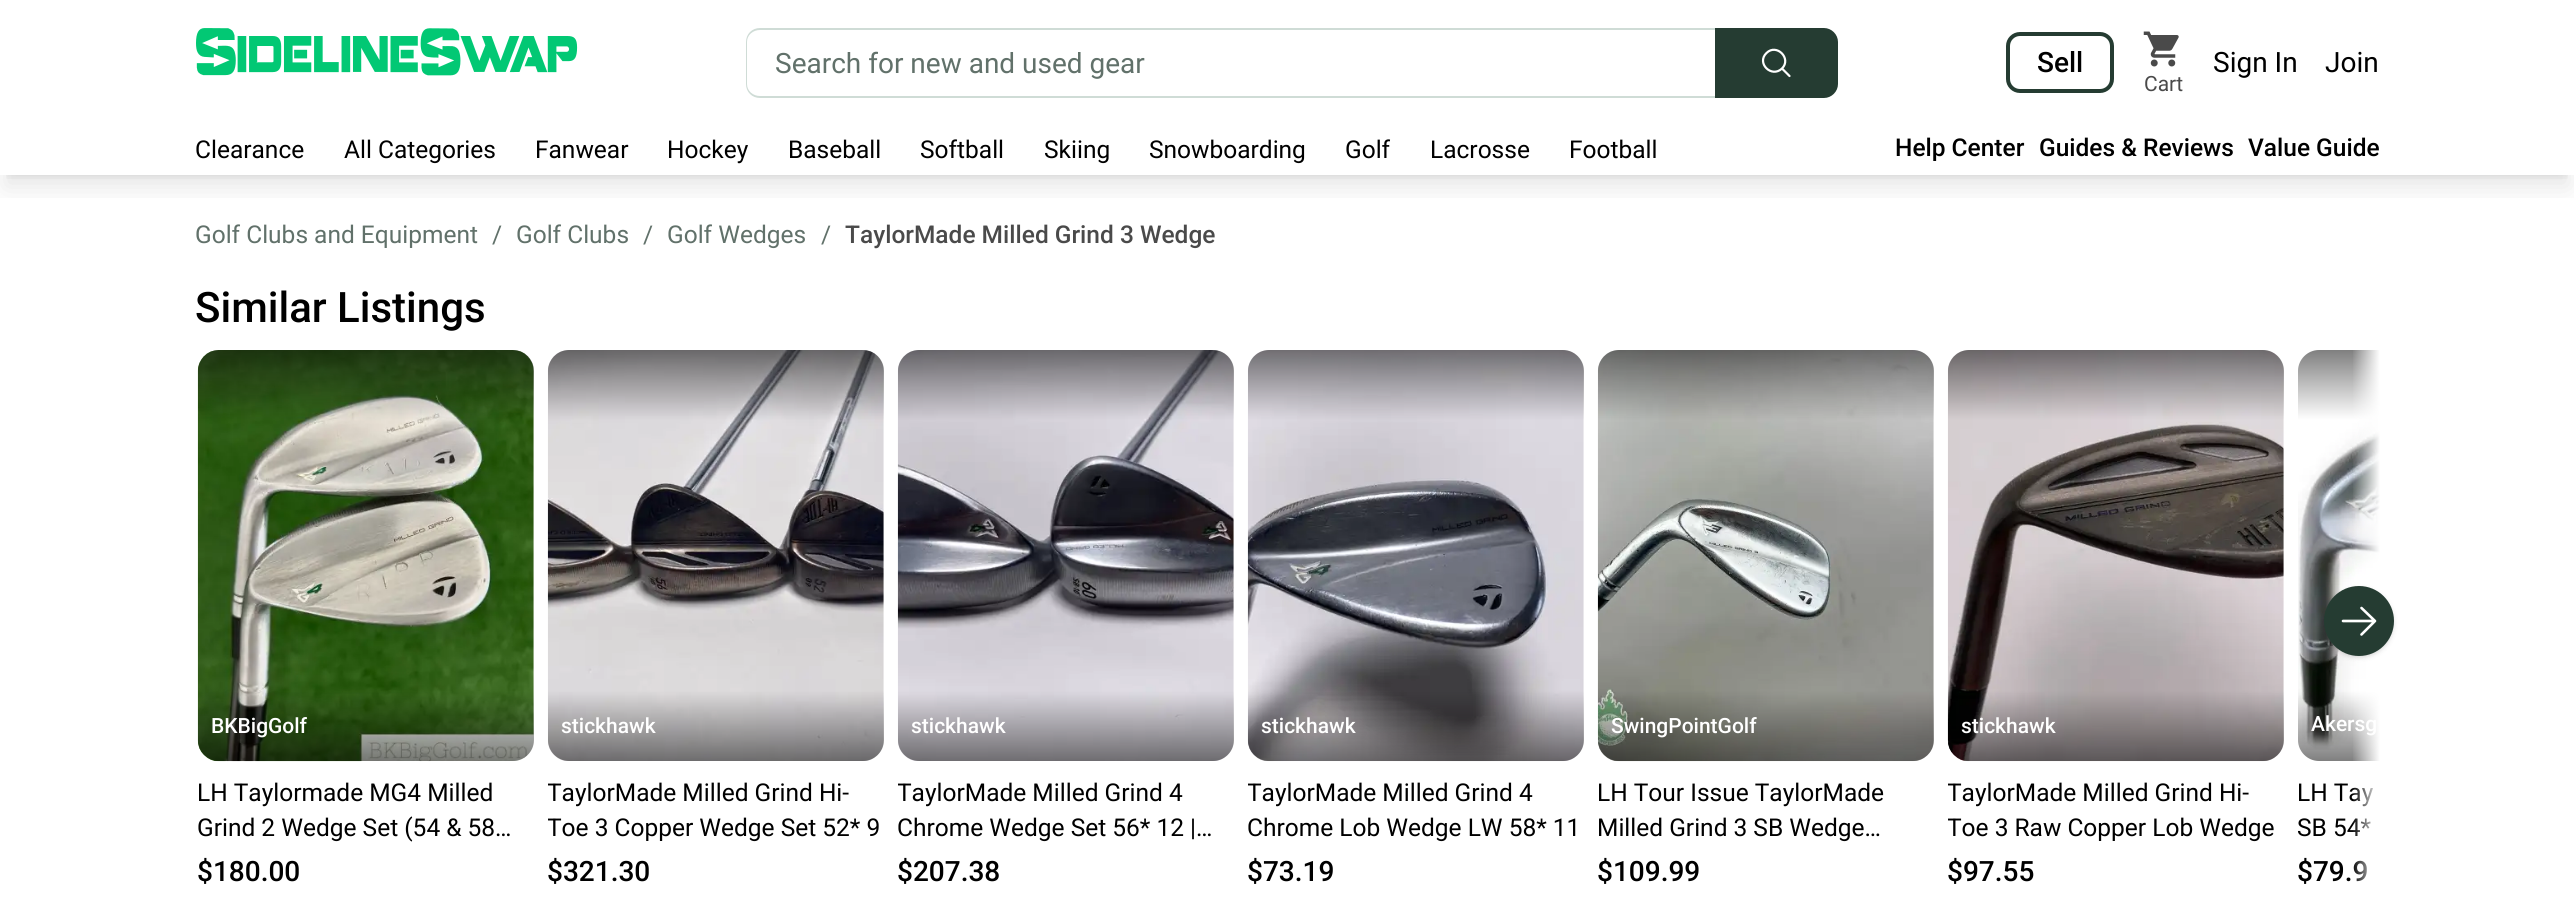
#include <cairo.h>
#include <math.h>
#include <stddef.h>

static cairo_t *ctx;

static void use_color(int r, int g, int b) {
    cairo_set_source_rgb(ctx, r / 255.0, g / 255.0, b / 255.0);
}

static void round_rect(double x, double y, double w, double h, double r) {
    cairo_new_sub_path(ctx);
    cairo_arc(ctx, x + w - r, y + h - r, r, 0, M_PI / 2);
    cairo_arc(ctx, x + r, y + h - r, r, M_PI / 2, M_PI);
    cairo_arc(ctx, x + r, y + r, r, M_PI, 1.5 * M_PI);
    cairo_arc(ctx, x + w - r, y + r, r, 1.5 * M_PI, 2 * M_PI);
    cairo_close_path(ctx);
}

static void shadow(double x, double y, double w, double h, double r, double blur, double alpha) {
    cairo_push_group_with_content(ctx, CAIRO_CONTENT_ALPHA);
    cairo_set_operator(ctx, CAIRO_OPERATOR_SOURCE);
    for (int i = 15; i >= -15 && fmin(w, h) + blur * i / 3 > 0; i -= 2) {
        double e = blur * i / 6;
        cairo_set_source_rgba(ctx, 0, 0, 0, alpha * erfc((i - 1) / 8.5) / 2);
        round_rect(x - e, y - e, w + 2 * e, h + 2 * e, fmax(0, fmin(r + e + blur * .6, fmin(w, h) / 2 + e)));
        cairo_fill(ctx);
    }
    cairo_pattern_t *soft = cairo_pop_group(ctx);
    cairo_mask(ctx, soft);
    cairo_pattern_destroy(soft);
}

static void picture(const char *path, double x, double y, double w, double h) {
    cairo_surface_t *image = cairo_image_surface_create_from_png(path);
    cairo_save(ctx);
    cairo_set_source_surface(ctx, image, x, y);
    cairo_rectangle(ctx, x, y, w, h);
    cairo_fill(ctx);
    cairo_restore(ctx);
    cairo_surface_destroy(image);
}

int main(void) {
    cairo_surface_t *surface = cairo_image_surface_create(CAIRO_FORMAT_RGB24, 2574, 908);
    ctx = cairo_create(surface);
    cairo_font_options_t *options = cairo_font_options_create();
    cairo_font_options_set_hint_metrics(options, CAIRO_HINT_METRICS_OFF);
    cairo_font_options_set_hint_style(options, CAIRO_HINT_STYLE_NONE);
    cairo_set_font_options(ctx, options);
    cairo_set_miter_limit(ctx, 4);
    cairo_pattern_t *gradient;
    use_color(255, 255, 255);
    cairo_paint(ctx);
    cairo_save(ctx);
    cairo_rectangle(ctx, 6, 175, 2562, 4);
    cairo_clip(ctx);
    use_color(0, 0, 0);
    shadow(7, 14, 2560, 161, 0, 5, 0.1);
    cairo_restore(ctx);
    cairo_save(ctx);
    cairo_rectangle(ctx, 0, 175, 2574, 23);
    cairo_clip(ctx);
    use_color(0, 0, 0);
    shadow(5, 23, 2564, 164, 0, 13, 0.1);
    cairo_restore(ctx);
    picture("img1.png", 196, 28, 382, 48);
    use_color(207, 220, 214);
    cairo_set_fill_rule(ctx, CAIRO_FILL_RULE_EVEN_ODD);
    cairo_new_path(ctx);
    cairo_move_to(ctx, 760, 28);
    cairo_line_to(ctx, 1715, 28);
    cairo_line_to(ctx, 1715, 98);
    cairo_line_to(ctx, 760, 98);
    cairo_curve_to(ctx, 752, 98, 746, 92, 746, 84);
    cairo_line_to(ctx, 746, 42);
    cairo_curve_to(ctx, 746, 34, 752, 28, 760, 28);
    cairo_close_path(ctx);
    cairo_move_to(ctx, 760, 30);
    cairo_line_to(ctx, 1715, 30);
    cairo_line_to(ctx, 1715, 96);
    cairo_line_to(ctx, 760, 96);
    cairo_curve_to(ctx, 753, 96, 747, 91, 747, 84);
    cairo_line_to(ctx, 747, 42);
    cairo_curve_to(ctx, 747, 35, 753, 30, 760, 30);
    cairo_close_path(ctx);
    cairo_fill(ctx);
    cairo_select_font_face(ctx, "Roboto", CAIRO_FONT_SLANT_NORMAL, CAIRO_FONT_WEIGHT_NORMAL);
    cairo_set_font_size(ctx, 28);
    use_color(97, 113, 106);
    cairo_move_to(ctx, 775, 73);
    cairo_show_text(ctx, "Search for new and used gear");
    use_color(37, 60, 50);
    cairo_new_path(ctx);
    cairo_move_to(ctx, 1716, 29);
    cairo_line_to(ctx, 1824, 29);
    cairo_curve_to(ctx, 1831, 29, 1837, 35, 1837, 42);
    cairo_line_to(ctx, 1837, 84);
    cairo_curve_to(ctx, 1837, 91, 1831, 97, 1824, 97);
    cairo_line_to(ctx, 1716, 97);
    cairo_close_path(ctx);
    cairo_fill_preserve(ctx);
    cairo_stroke(ctx);
    cairo_new_path(ctx);
    cairo_move_to(ctx, 1789.5, 76);
    cairo_line_to(ctx, 1782, 68.5);
    cairo_move_to(ctx, 1782, 68.5);
    cairo_curve_to(ctx, 1792, 58.5, 1776.5, 43, 1766.5, 53);
    cairo_curve_to(ctx, 1756, 63, 1771.5, 78.5, 1782, 68.5);
    cairo_close_path(ctx);
    use_color(255, 255, 255);
    cairo_set_line_width(ctx, 2.2);
    cairo_set_line_cap(ctx, CAIRO_LINE_CAP_ROUND);
    cairo_set_line_join(ctx, CAIRO_LINE_JOIN_ROUND);
    cairo_stroke(ctx);
    round_rect(2008, 34, 104, 57, 12);
    use_color(37, 60, 50);
    cairo_set_line_width(ctx, 4);
    cairo_set_line_cap(ctx, CAIRO_LINE_CAP_BUTT);
    cairo_set_line_join(ctx, CAIRO_LINE_JOIN_MITER);
    cairo_stroke(ctx);
    cairo_select_font_face(ctx, "Roboto Medium", CAIRO_FONT_SLANT_NORMAL, CAIRO_FONT_WEIGHT_NORMAL);
    use_color(0, 0, 0);
    cairo_move_to(ctx, 2037, 72);
    cairo_show_text(ctx, "Sell");
    cairo_select_font_face(ctx, "Roboto", CAIRO_FONT_SLANT_NORMAL, CAIRO_FONT_WEIGHT_NORMAL);
    cairo_move_to(ctx, 2213, 72);
    cairo_show_text(ctx, "Sign In");
    cairo_move_to(ctx, 2325, 72);
    cairo_show_text(ctx, "Join");
    picture("img2.png", 2143, 31, 36, 36);
    cairo_set_font_size(ctx, 21);
    use_color(74, 74, 74);
    cairo_move_to(ctx, 2144, 91);
    cairo_show_text(ctx, "Cart");
    cairo_set_font_size(ctx, 24.5);
    use_color(0, 0, 0);
    cairo_move_to(ctx, 195, 158);
    cairo_show_text(ctx, "Clearance");
    cairo_move_to(ctx, 344, 158);
    cairo_show_text(ctx, "All Categories");
    cairo_move_to(ctx, 535, 158);
    cairo_show_text(ctx, "Fanwear");
    cairo_move_to(ctx, 667, 158);
    cairo_show_text(ctx, "Hockey");
    cairo_move_to(ctx, 788, 158);
    cairo_show_text(ctx, "Baseball");
    cairo_move_to(ctx, 920, 158);
    cairo_show_text(ctx, "Softball");
    cairo_move_to(ctx, 1044, 158);
    cairo_show_text(ctx, "Skiing");
    cairo_move_to(ctx, 1149, 158);
    cairo_show_text(ctx, "Snowboarding");
    cairo_move_to(ctx, 1345, 158);
    cairo_show_text(ctx, "Golf");
    cairo_move_to(ctx, 1430, 158);
    cairo_show_text(ctx, "Lacrosse");
    cairo_move_to(ctx, 1569, 158);
    cairo_show_text(ctx, "Football");
    cairo_select_font_face(ctx, "Roboto Medium", CAIRO_FONT_SLANT_NORMAL, CAIRO_FONT_WEIGHT_NORMAL);
    cairo_move_to(ctx, 1895, 156);
    cairo_show_text(ctx, "Help Center");
    cairo_move_to(ctx, 2039, 156);
    cairo_show_text(ctx, "Guides & Reviews");
    cairo_move_to(ctx, 2248, 156);
    cairo_show_text(ctx, "Value Guide");
    cairo_select_font_face(ctx, "Roboto", CAIRO_FONT_SLANT_NORMAL, CAIRO_FONT_WEIGHT_NORMAL);
    use_color(97, 113, 106);
    cairo_move_to(ctx, 195, 243);
    cairo_show_text(ctx, "Golf Clubs and Equipment");
    cairo_move_to(ctx, 492, 243);
    cairo_show_text(ctx, "/");
    cairo_move_to(ctx, 516, 243);
    cairo_show_text(ctx, "Golf Clubs");
    cairo_move_to(ctx, 643, 243);
    cairo_show_text(ctx, "/");
    cairo_move_to(ctx, 667, 243);
    cairo_show_text(ctx, "Golf Wedges");
    cairo_move_to(ctx, 821, 243);
    cairo_show_text(ctx, "/");
    cairo_select_font_face(ctx, "Roboto Medium", CAIRO_FONT_SLANT_NORMAL, CAIRO_FONT_WEIGHT_NORMAL);
    use_color(74, 74, 74);
    cairo_move_to(ctx, 845, 243);
    cairo_show_text(ctx, "TaylorMade Milled Grind 3 Wedge");
    cairo_set_font_size(ctx, 42);
    use_color(0, 0, 0);
    cairo_move_to(ctx, 195, 322);
    cairo_show_text(ctx, "Similar Listings");
    picture("img9.png", 2298, 418, 82, 332);
    gradient = cairo_pattern_create_linear(2466, 420, 2466, 350);
    cairo_pattern_add_color_stop_rgba(gradient, 0, 0, 0, 0, 0);
    cairo_pattern_add_color_stop_rgba(gradient, 1, 0, 0, 0, 0.5);
    cairo_set_source(ctx, gradient);
    cairo_pattern_destroy(gradient);
    cairo_new_path(ctx);
    cairo_move_to(ctx, 2319, 350);
    cairo_line_to(ctx, 2380, 350);
    cairo_line_to(ctx, 2380, 420);
    cairo_line_to(ctx, 2298, 420);
    cairo_line_to(ctx, 2298, 371);
    cairo_curve_to(ctx, 2298, 359.5, 2307.5, 350, 2319, 350);
    cairo_close_path(ctx);
    cairo_fill(ctx);
    gradient = cairo_pattern_create_linear(2466, 691, 2466, 761);
    cairo_pattern_add_color_stop_rgba(gradient, 0, 0, 0, 0, 0);
    cairo_pattern_add_color_stop_rgba(gradient, 1, 0, 0, 0, 0.5);
    cairo_set_source(ctx, gradient);
    cairo_pattern_destroy(gradient);
    cairo_new_path(ctx);
    cairo_move_to(ctx, 2298, 691);
    cairo_line_to(ctx, 2380, 691);
    cairo_line_to(ctx, 2380, 761);
    cairo_line_to(ctx, 2319, 761);
    cairo_curve_to(ctx, 2307.5, 761, 2298, 751.5, 2298, 740);
    cairo_close_path(ctx);
    cairo_fill(ctx);
    cairo_set_font_size(ctx, 21);
    use_color(255, 255, 255);
    cairo_move_to(ctx, 2311, 731);
    cairo_show_text(ctx, "Akersg");
    cairo_select_font_face(ctx, "Roboto", CAIRO_FONT_SLANT_NORMAL, CAIRO_FONT_WEIGHT_NORMAL);
    cairo_set_font_size(ctx, 24.5);
    use_color(0, 0, 0);
    cairo_move_to(ctx, 2297, 801);
    cairo_show_text(ctx, "LH Tay");
    cairo_move_to(ctx, 2297, 836);
    cairo_show_text(ctx, "SB 54*");
    cairo_select_font_face(ctx, "Roboto Medium", CAIRO_FONT_SLANT_NORMAL, CAIRO_FONT_WEIGHT_NORMAL);
    cairo_set_font_size(ctx, 28);
    cairo_move_to(ctx, 2297, 881);
    cairo_show_text(ctx, "$79.9");
    gradient = cairo_pattern_create_linear(2380, 622, 2352, 622);
    cairo_pattern_add_color_stop_rgba(gradient, 0, 1, 1, 1, 1);
    cairo_pattern_add_color_stop_rgba(gradient, 1, 1, 1, 1, 0);
    cairo_set_source(ctx, gradient);
    cairo_pattern_destroy(gradient);
    cairo_rectangle(ctx, 2353, 350, 27, 532);
    cairo_fill(ctx);
    use_color(0, 0, 0);
    shadow(2326, 590, 66, 66, 33, 2, 0.1);
    shadow(2324, 588, 70, 70, 35, 2.5, 0.1);
    use_color(37, 60, 50);
    cairo_arc(ctx, 2359, 621, 35, 0, 2 * M_PI);
    cairo_fill(ctx);
    cairo_new_path(ctx);
    cairo_move_to(ctx, 2361.5, 608);
    cairo_line_to(ctx, 2375, 621);
    cairo_move_to(ctx, 2375, 621);
    cairo_line_to(ctx, 2361.5, 634.5);
    cairo_move_to(ctx, 2375, 621);
    cairo_line_to(ctx, 2343, 621);
    use_color(255, 255, 255);
    cairo_set_line_width(ctx, 2.6);
    cairo_set_line_cap(ctx, CAIRO_LINE_CAP_ROUND);
    cairo_set_line_join(ctx, CAIRO_LINE_JOIN_ROUND);
    cairo_stroke(ctx);
    picture("img3.png", 197, 350, 337, 412);
    gradient = cairo_pattern_create_linear(366, 420, 366, 350);
    cairo_pattern_add_color_stop_rgba(gradient, 0, 0, 0, 0, 0);
    cairo_pattern_add_color_stop_rgba(gradient, 1, 0, 0, 0, 0.5);
    cairo_set_source(ctx, gradient);
    cairo_pattern_destroy(gradient);
    cairo_new_path(ctx);
    cairo_move_to(ctx, 219, 350);
    cairo_line_to(ctx, 513, 350);
    cairo_curve_to(ctx, 524.5, 350, 534, 359.5, 534, 371);
    cairo_line_to(ctx, 534, 420);
    cairo_line_to(ctx, 198, 420);
    cairo_line_to(ctx, 198, 371);
    cairo_curve_to(ctx, 198, 359.5, 207.5, 350, 219, 350);
    cairo_close_path(ctx);
    cairo_fill(ctx);
    gradient = cairo_pattern_create_linear(366, 691, 366, 761);
    cairo_pattern_add_color_stop_rgba(gradient, 0, 0, 0, 0, 0);
    cairo_pattern_add_color_stop_rgba(gradient, 1, 0, 0, 0, 0.5);
    cairo_set_source(ctx, gradient);
    cairo_pattern_destroy(gradient);
    cairo_new_path(ctx);
    cairo_move_to(ctx, 198, 691);
    cairo_line_to(ctx, 534, 691);
    cairo_line_to(ctx, 534, 740);
    cairo_curve_to(ctx, 534, 751.5, 524.5, 761, 513, 761);
    cairo_line_to(ctx, 219, 761);
    cairo_curve_to(ctx, 207.5, 761, 198, 751.5, 198, 740);
    cairo_close_path(ctx);
    cairo_fill(ctx);
    cairo_set_font_size(ctx, 21);
    use_color(255, 255, 255);
    cairo_move_to(ctx, 211, 733);
    cairo_show_text(ctx, "BKBigGolf");
    cairo_select_font_face(ctx, "Roboto", CAIRO_FONT_SLANT_NORMAL, CAIRO_FONT_WEIGHT_NORMAL);
    cairo_set_font_size(ctx, 24.5);
    use_color(0, 0, 0);
    cairo_move_to(ctx, 197, 801);
    cairo_show_text(ctx, "LH Taylormade MG4 Milled");
    cairo_move_to(ctx, 197, 836);
    cairo_show_text(ctx, "Grind 2 Wedge Set (54 & 58…");
    cairo_select_font_face(ctx, "Roboto Medium", CAIRO_FONT_SLANT_NORMAL, CAIRO_FONT_WEIGHT_NORMAL);
    cairo_set_font_size(ctx, 28);
    cairo_move_to(ctx, 197, 881);
    cairo_show_text(ctx, "$180.00");
    picture("img4.png", 547, 350, 337, 411);
    gradient = cairo_pattern_create_linear(716, 420, 716, 350);
    cairo_pattern_add_color_stop_rgba(gradient, 0, 0, 0, 0, 0);
    cairo_pattern_add_color_stop_rgba(gradient, 1, 0, 0, 0, 0.5);
    cairo_set_source(ctx, gradient);
    cairo_pattern_destroy(gradient);
    cairo_new_path(ctx);
    cairo_move_to(ctx, 569, 350);
    cairo_line_to(ctx, 863, 350);
    cairo_curve_to(ctx, 874.5, 350, 884, 359.5, 884, 371);
    cairo_line_to(ctx, 884, 420);
    cairo_line_to(ctx, 548, 420);
    cairo_line_to(ctx, 548, 371);
    cairo_curve_to(ctx, 548, 359.5, 557.5, 350, 569, 350);
    cairo_close_path(ctx);
    cairo_fill(ctx);
    gradient = cairo_pattern_create_linear(716, 691, 716, 761);
    cairo_pattern_add_color_stop_rgba(gradient, 0, 0, 0, 0, 0);
    cairo_pattern_add_color_stop_rgba(gradient, 1, 0, 0, 0, 0.5);
    cairo_set_source(ctx, gradient);
    cairo_pattern_destroy(gradient);
    cairo_new_path(ctx);
    cairo_move_to(ctx, 548, 691);
    cairo_line_to(ctx, 884, 691);
    cairo_line_to(ctx, 884, 740);
    cairo_curve_to(ctx, 884, 751.5, 874.5, 761, 863, 761);
    cairo_line_to(ctx, 569, 761);
    cairo_curve_to(ctx, 557.5, 761, 548, 751.5, 548, 740);
    cairo_close_path(ctx);
    cairo_fill(ctx);
    cairo_set_font_size(ctx, 21);
    use_color(255, 255, 255);
    cairo_move_to(ctx, 561, 733);
    cairo_show_text(ctx, "stickhawk");
    cairo_save(ctx);
    cairo_set_fill_rule(ctx, CAIRO_FILL_RULE_WINDING);
    cairo_rectangle(ctx, 548, 775, 336, 70);
    cairo_clip(ctx);
    cairo_select_font_face(ctx, "Roboto", CAIRO_FONT_SLANT_NORMAL, CAIRO_FONT_WEIGHT_NORMAL);
    cairo_set_font_size(ctx, 24.5);
    use_color(0, 0, 0);
    cairo_move_to(ctx, 547, 801);
    cairo_show_text(ctx, "TaylorMade Milled Grind Hi-");
    cairo_move_to(ctx, 547, 836);
    cairo_show_text(ctx, "Toe 3 Copper Wedge Set 52* 9");
    cairo_restore(ctx);
    cairo_set_font_size(ctx, 28);
    use_color(0, 0, 0);
    cairo_move_to(ctx, 547, 881);
    cairo_show_text(ctx, "$321.30");
    picture("img5.png", 897, 350, 337, 411);
    gradient = cairo_pattern_create_linear(1066, 420, 1066, 350);
    cairo_pattern_add_color_stop_rgba(gradient, 0, 0, 0, 0, 0);
    cairo_pattern_add_color_stop_rgba(gradient, 1, 0, 0, 0, 0.5);
    cairo_set_source(ctx, gradient);
    cairo_pattern_destroy(gradient);
    cairo_new_path(ctx);
    cairo_move_to(ctx, 919, 350);
    cairo_line_to(ctx, 1213, 350);
    cairo_curve_to(ctx, 1224.5, 350, 1234, 359.5, 1234, 371);
    cairo_line_to(ctx, 1234, 420);
    cairo_line_to(ctx, 898, 420);
    cairo_line_to(ctx, 898, 371);
    cairo_curve_to(ctx, 898, 359.5, 907.5, 350, 919, 350);
    cairo_close_path(ctx);
    cairo_fill(ctx);
    gradient = cairo_pattern_create_linear(1066, 691, 1066, 761);
    cairo_pattern_add_color_stop_rgba(gradient, 0, 0, 0, 0, 0);
    cairo_pattern_add_color_stop_rgba(gradient, 1, 0, 0, 0, 0.5);
    cairo_set_source(ctx, gradient);
    cairo_pattern_destroy(gradient);
    cairo_new_path(ctx);
    cairo_move_to(ctx, 898, 691);
    cairo_line_to(ctx, 1234, 691);
    cairo_line_to(ctx, 1234, 740);
    cairo_curve_to(ctx, 1234, 751.5, 1224.5, 761, 1213, 761);
    cairo_line_to(ctx, 919, 761);
    cairo_curve_to(ctx, 907.5, 761, 898, 751.5, 898, 740);
    cairo_close_path(ctx);
    cairo_fill(ctx);
    cairo_set_font_size(ctx, 21);
    use_color(255, 255, 255);
    cairo_move_to(ctx, 911, 733);
    cairo_show_text(ctx, "stickhawk");
    cairo_save(ctx);
    cairo_set_fill_rule(ctx, CAIRO_FILL_RULE_WINDING);
    cairo_rectangle(ctx, 898, 775, 336, 70);
    cairo_clip(ctx);
    cairo_select_font_face(ctx, "Roboto", CAIRO_FONT_SLANT_NORMAL, CAIRO_FONT_WEIGHT_NORMAL);
    cairo_set_font_size(ctx, 24.5);
    use_color(0, 0, 0);
    cairo_move_to(ctx, 897, 801);
    cairo_show_text(ctx, "TaylorMade Milled Grind 4");
    cairo_restore(ctx);
    cairo_select_font_face(ctx, "Roboto", CAIRO_FONT_SLANT_NORMAL, CAIRO_FONT_WEIGHT_NORMAL);
    cairo_set_font_size(ctx, 24.5);
    use_color(0, 0, 0);
    cairo_move_to(ctx, 897, 836);
    cairo_show_text(ctx, "Chrome Wedge Set 56* 12 |…");
    cairo_select_font_face(ctx, "Roboto Medium", CAIRO_FONT_SLANT_NORMAL, CAIRO_FONT_WEIGHT_NORMAL);
    cairo_set_font_size(ctx, 28);
    cairo_move_to(ctx, 897, 881);
    cairo_show_text(ctx, "$207.38");
    picture("img6.png", 1247, 350, 337, 412);
    gradient = cairo_pattern_create_linear(1416, 420, 1416, 350);
    cairo_pattern_add_color_stop_rgba(gradient, 0, 0, 0, 0, 0);
    cairo_pattern_add_color_stop_rgba(gradient, 1, 0, 0, 0, 0.5);
    cairo_set_source(ctx, gradient);
    cairo_pattern_destroy(gradient);
    cairo_new_path(ctx);
    cairo_move_to(ctx, 1269, 350);
    cairo_line_to(ctx, 1563, 350);
    cairo_curve_to(ctx, 1574.5, 350, 1584, 359.5, 1584, 371);
    cairo_line_to(ctx, 1584, 420);
    cairo_line_to(ctx, 1248, 420);
    cairo_line_to(ctx, 1248, 371);
    cairo_curve_to(ctx, 1248, 359.5, 1257.5, 350, 1269, 350);
    cairo_close_path(ctx);
    cairo_fill(ctx);
    gradient = cairo_pattern_create_linear(1416, 691, 1416, 761);
    cairo_pattern_add_color_stop_rgba(gradient, 0, 0, 0, 0, 0);
    cairo_pattern_add_color_stop_rgba(gradient, 1, 0, 0, 0, 0.5);
    cairo_set_source(ctx, gradient);
    cairo_pattern_destroy(gradient);
    cairo_new_path(ctx);
    cairo_move_to(ctx, 1248, 691);
    cairo_line_to(ctx, 1584, 691);
    cairo_line_to(ctx, 1584, 740);
    cairo_curve_to(ctx, 1584, 751.5, 1574.5, 761, 1563, 761);
    cairo_line_to(ctx, 1269, 761);
    cairo_curve_to(ctx, 1257.5, 761, 1248, 751.5, 1248, 740);
    cairo_close_path(ctx);
    cairo_fill(ctx);
    cairo_set_font_size(ctx, 21);
    use_color(255, 255, 255);
    cairo_move_to(ctx, 1261, 733);
    cairo_show_text(ctx, "stickhawk");
    cairo_save(ctx);
    cairo_set_fill_rule(ctx, CAIRO_FILL_RULE_WINDING);
    cairo_rectangle(ctx, 1248, 775, 336, 70);
    cairo_clip(ctx);
    cairo_select_font_face(ctx, "Roboto", CAIRO_FONT_SLANT_NORMAL, CAIRO_FONT_WEIGHT_NORMAL);
    cairo_set_font_size(ctx, 24.5);
    use_color(0, 0, 0);
    cairo_move_to(ctx, 1247, 801);
    cairo_show_text(ctx, "TaylorMade Milled Grind 4");
    cairo_restore(ctx);
    cairo_select_font_face(ctx, "Roboto", CAIRO_FONT_SLANT_NORMAL, CAIRO_FONT_WEIGHT_NORMAL);
    cairo_set_font_size(ctx, 24.5);
    use_color(0, 0, 0);
    cairo_move_to(ctx, 1247, 836);
    cairo_show_text(ctx, "Chrome Lob Wedge LW 58* 11");
    cairo_select_font_face(ctx, "Roboto Medium", CAIRO_FONT_SLANT_NORMAL, CAIRO_FONT_WEIGHT_NORMAL);
    cairo_set_font_size(ctx, 28);
    cairo_move_to(ctx, 1247, 881);
    cairo_show_text(ctx, "$73.19");
    picture("img7.png", 1597, 350, 337, 412);
    gradient = cairo_pattern_create_linear(1766, 420, 1766, 350);
    cairo_pattern_add_color_stop_rgba(gradient, 0, 0, 0, 0, 0);
    cairo_pattern_add_color_stop_rgba(gradient, 1, 0, 0, 0, 0.5);
    cairo_set_source(ctx, gradient);
    cairo_pattern_destroy(gradient);
    cairo_new_path(ctx);
    cairo_move_to(ctx, 1619, 350);
    cairo_line_to(ctx, 1913, 350);
    cairo_curve_to(ctx, 1924.5, 350, 1934, 359.5, 1934, 371);
    cairo_line_to(ctx, 1934, 420);
    cairo_line_to(ctx, 1598, 420);
    cairo_line_to(ctx, 1598, 371);
    cairo_curve_to(ctx, 1598, 359.5, 1607.5, 350, 1619, 350);
    cairo_close_path(ctx);
    cairo_fill(ctx);
    gradient = cairo_pattern_create_linear(1766, 691, 1766, 761);
    cairo_pattern_add_color_stop_rgba(gradient, 0, 0, 0, 0, 0);
    cairo_pattern_add_color_stop_rgba(gradient, 1, 0, 0, 0, 0.5);
    cairo_set_source(ctx, gradient);
    cairo_pattern_destroy(gradient);
    cairo_new_path(ctx);
    cairo_move_to(ctx, 1598, 691);
    cairo_line_to(ctx, 1934, 691);
    cairo_line_to(ctx, 1934, 740);
    cairo_curve_to(ctx, 1934, 751.5, 1924.5, 761, 1913, 761);
    cairo_line_to(ctx, 1619, 761);
    cairo_curve_to(ctx, 1607.5, 761, 1598, 751.5, 1598, 740);
    cairo_close_path(ctx);
    cairo_fill(ctx);
    cairo_set_font_size(ctx, 21);
    use_color(255, 255, 255);
    cairo_move_to(ctx, 1611, 733);
    cairo_show_text(ctx, "SwingPointGolf");
    cairo_select_font_face(ctx, "Roboto", CAIRO_FONT_SLANT_NORMAL, CAIRO_FONT_WEIGHT_NORMAL);
    cairo_set_font_size(ctx, 24.5);
    use_color(0, 0, 0);
    cairo_move_to(ctx, 1597, 801);
    cairo_show_text(ctx, "LH Tour Issue TaylorMade");
    cairo_move_to(ctx, 1597, 836);
    cairo_show_text(ctx, "Milled Grind 3 SB Wedge…");
    cairo_select_font_face(ctx, "Roboto Medium", CAIRO_FONT_SLANT_NORMAL, CAIRO_FONT_WEIGHT_NORMAL);
    cairo_set_font_size(ctx, 28);
    cairo_move_to(ctx, 1597, 881);
    cairo_show_text(ctx, "$109.99");
    picture("img8.png", 1947, 350, 337, 412);
    gradient = cairo_pattern_create_linear(2116, 420, 2116, 350);
    cairo_pattern_add_color_stop_rgba(gradient, 0, 0, 0, 0, 0);
    cairo_pattern_add_color_stop_rgba(gradient, 1, 0, 0, 0, 0.5);
    cairo_set_source(ctx, gradient);
    cairo_pattern_destroy(gradient);
    cairo_new_path(ctx);
    cairo_move_to(ctx, 1969, 350);
    cairo_line_to(ctx, 2263, 350);
    cairo_curve_to(ctx, 2274.5, 350, 2284, 359.5, 2284, 371);
    cairo_line_to(ctx, 2284, 420);
    cairo_line_to(ctx, 1948, 420);
    cairo_line_to(ctx, 1948, 371);
    cairo_curve_to(ctx, 1948, 359.5, 1957.5, 350, 1969, 350);
    cairo_close_path(ctx);
    cairo_fill(ctx);
    gradient = cairo_pattern_create_linear(2116, 691, 2116, 761);
    cairo_pattern_add_color_stop_rgba(gradient, 0, 0, 0, 0, 0);
    cairo_pattern_add_color_stop_rgba(gradient, 1, 0, 0, 0, 0.5);
    cairo_set_source(ctx, gradient);
    cairo_pattern_destroy(gradient);
    cairo_new_path(ctx);
    cairo_move_to(ctx, 1948, 691);
    cairo_line_to(ctx, 2284, 691);
    cairo_line_to(ctx, 2284, 740);
    cairo_curve_to(ctx, 2284, 751.5, 2274.5, 761, 2263, 761);
    cairo_line_to(ctx, 1969, 761);
    cairo_curve_to(ctx, 1957.5, 761, 1948, 751.5, 1948, 740);
    cairo_close_path(ctx);
    cairo_fill(ctx);
    cairo_set_font_size(ctx, 21);
    use_color(255, 255, 255);
    cairo_move_to(ctx, 1961, 733);
    cairo_show_text(ctx, "stickhawk");
    cairo_save(ctx);
    cairo_set_fill_rule(ctx, CAIRO_FILL_RULE_WINDING);
    cairo_rectangle(ctx, 1948, 775, 336, 70);
    cairo_clip(ctx);
    cairo_select_font_face(ctx, "Roboto", CAIRO_FONT_SLANT_NORMAL, CAIRO_FONT_WEIGHT_NORMAL);
    cairo_set_font_size(ctx, 24.5);
    use_color(0, 0, 0);
    cairo_move_to(ctx, 1947, 801);
    cairo_show_text(ctx, "TaylorMade Milled Grind Hi-");
    cairo_move_to(ctx, 1947, 836);
    cairo_show_text(ctx, "Toe 3 Raw Copper Lob Wedge");
    cairo_restore(ctx);
    cairo_set_font_size(ctx, 28);
    use_color(0, 0, 0);
    cairo_move_to(ctx, 1947, 881);
    cairo_show_text(ctx, "$97.55");
    cairo_surface_write_to_png(surface, "result.png");
    cairo_font_options_destroy(options);
    cairo_destroy(ctx);
    cairo_surface_destroy(surface);
    return 0;
}
